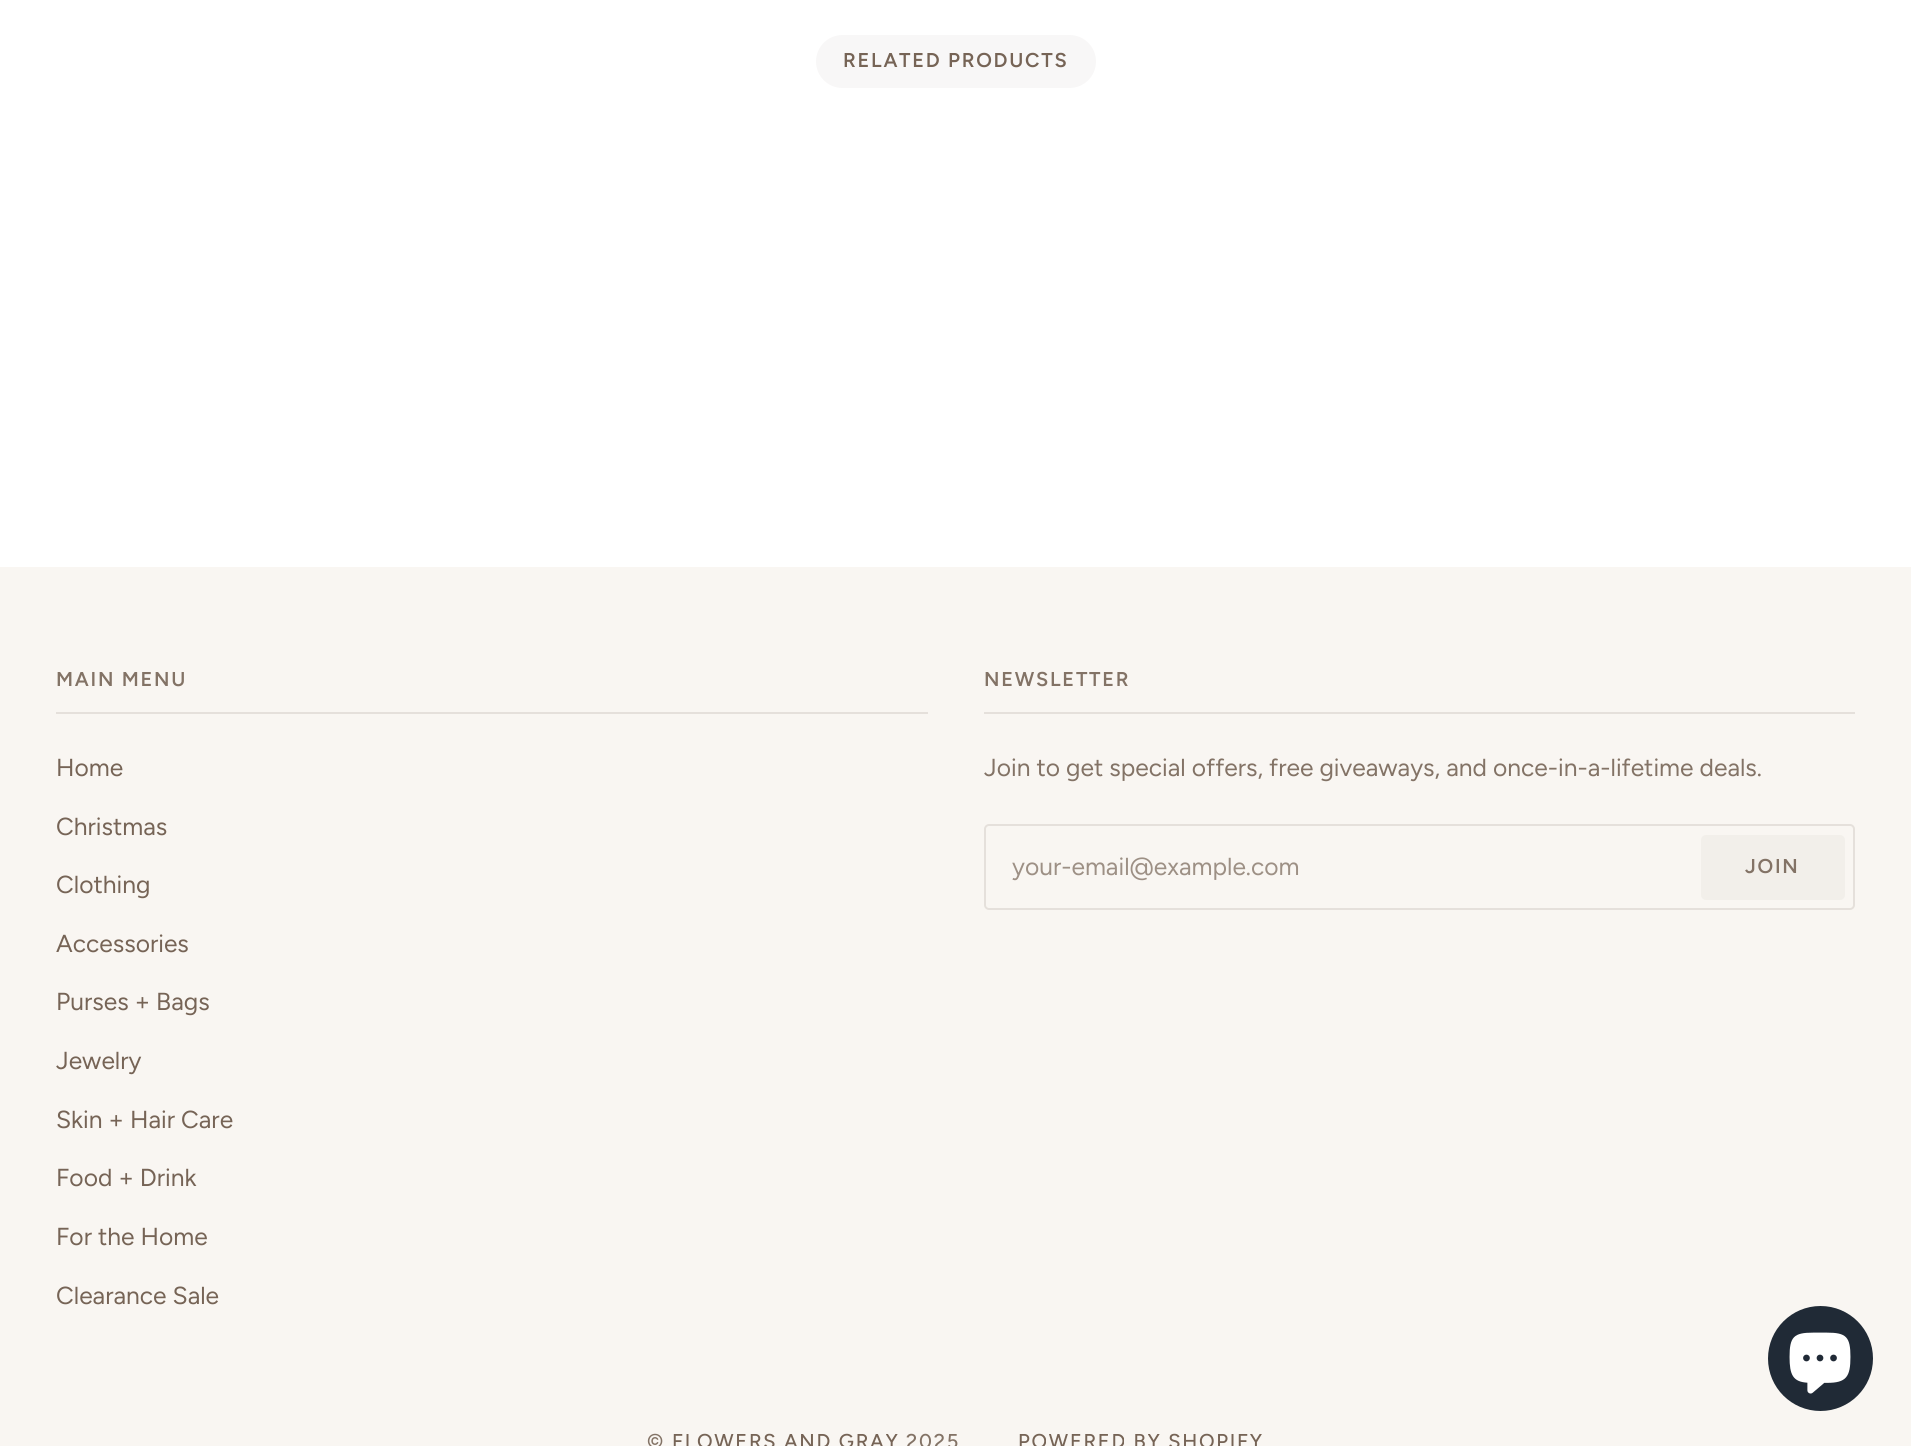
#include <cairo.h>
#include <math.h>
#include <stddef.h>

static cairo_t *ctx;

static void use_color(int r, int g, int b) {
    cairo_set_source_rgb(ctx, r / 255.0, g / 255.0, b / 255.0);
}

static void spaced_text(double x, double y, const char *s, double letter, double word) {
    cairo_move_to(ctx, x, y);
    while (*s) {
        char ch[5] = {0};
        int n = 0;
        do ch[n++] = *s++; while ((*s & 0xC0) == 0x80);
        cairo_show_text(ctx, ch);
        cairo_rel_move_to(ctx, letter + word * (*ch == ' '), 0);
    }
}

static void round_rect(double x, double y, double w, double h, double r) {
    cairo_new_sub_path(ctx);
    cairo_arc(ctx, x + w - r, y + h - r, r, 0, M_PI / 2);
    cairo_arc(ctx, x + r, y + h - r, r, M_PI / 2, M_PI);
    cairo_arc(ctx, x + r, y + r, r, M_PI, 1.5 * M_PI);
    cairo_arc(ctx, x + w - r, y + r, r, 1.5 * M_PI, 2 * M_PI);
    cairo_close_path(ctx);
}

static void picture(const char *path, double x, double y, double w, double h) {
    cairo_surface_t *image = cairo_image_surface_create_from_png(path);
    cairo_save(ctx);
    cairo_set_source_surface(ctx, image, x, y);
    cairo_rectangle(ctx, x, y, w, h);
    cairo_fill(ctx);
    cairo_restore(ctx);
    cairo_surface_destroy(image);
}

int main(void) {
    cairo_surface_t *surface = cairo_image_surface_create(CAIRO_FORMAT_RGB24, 1911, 1446);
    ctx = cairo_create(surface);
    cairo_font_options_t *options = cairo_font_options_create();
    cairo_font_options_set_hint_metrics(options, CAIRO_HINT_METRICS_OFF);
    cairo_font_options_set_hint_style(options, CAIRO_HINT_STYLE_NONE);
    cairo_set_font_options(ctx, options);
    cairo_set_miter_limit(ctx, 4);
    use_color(255, 255, 255);
    cairo_paint(ctx);
    use_color(248, 247, 247);
    round_rect(816, 35, 280, 53, 26.5);
    cairo_fill(ctx);
    cairo_select_font_face(ctx, "Figtree SemiBold", CAIRO_FONT_SLANT_NORMAL, CAIRO_FONT_WEIGHT_NORMAL);
    cairo_set_font_size(ctx, 20);
    use_color(118, 100, 86);
    spaced_text(843, 67, "RELATED PRODUCTS", 1.75, 0);
    use_color(249, 246, 242);
    cairo_rectangle(ctx, 0, 567, 1911, 879);
    cairo_fill(ctx);
    use_color(229, 224, 219);
    cairo_rectangle(ctx, 56, 712, 872, 2);
    cairo_fill(ctx);
    use_color(131, 115, 102);
    spaced_text(56, 686, "MAIN MENU", 1.75, 0);
    cairo_select_font_face(ctx, "Figtree", CAIRO_FONT_SLANT_NORMAL, CAIRO_FONT_WEIGHT_NORMAL);
    cairo_set_font_size(ctx, 24.6);
    use_color(118, 100, 86);
    cairo_move_to(ctx, 56, 776);
    cairo_show_text(ctx, "Home");
    cairo_move_to(ctx, 56, 835);
    cairo_show_text(ctx, "Christmas");
    cairo_move_to(ctx, 56, 893);
    cairo_show_text(ctx, "Clothing");
    cairo_move_to(ctx, 56, 952);
    cairo_show_text(ctx, "Accessories");
    cairo_move_to(ctx, 56, 1010);
    cairo_show_text(ctx, "Purses + Bags");
    cairo_move_to(ctx, 56, 1069);
    cairo_show_text(ctx, "Jewelry");
    cairo_move_to(ctx, 56, 1128);
    cairo_show_text(ctx, "Skin + Hair Care");
    cairo_move_to(ctx, 56, 1186);
    cairo_show_text(ctx, "Food + Drink");
    cairo_move_to(ctx, 56, 1245);
    cairo_show_text(ctx, "For the Home");
    cairo_move_to(ctx, 56, 1304);
    cairo_show_text(ctx, "Clearance Sale");
    use_color(229, 224, 219);
    cairo_rectangle(ctx, 984, 712, 871, 2);
    cairo_fill(ctx);
    cairo_select_font_face(ctx, "Figtree SemiBold", CAIRO_FONT_SLANT_NORMAL, CAIRO_FONT_WEIGHT_NORMAL);
    cairo_set_font_size(ctx, 20);
    use_color(131, 115, 102);
    spaced_text(984, 686, "NEWSLETTER", 1.75, 0);
    cairo_select_font_face(ctx, "Figtree", CAIRO_FONT_SLANT_NORMAL, CAIRO_FONT_WEIGHT_NORMAL);
    cairo_set_font_size(ctx, 24.6);
    cairo_move_to(ctx, 984, 776);
    cairo_show_text(ctx, "Join to get special offers, free giveaways, and once-in-a-lifetime deals.");
    round_rect(985, 825, 869, 84, 4);
    use_color(229, 224, 219);
    cairo_stroke(ctx);
    use_color(157, 144, 133);
    cairo_move_to(ctx, 1012, 875);
    cairo_show_text(ctx, "your-email@example.com");
    use_color(242, 239, 234);
    round_rect(1701, 835, 144, 65, 5);
    cairo_fill(ctx);
    cairo_select_font_face(ctx, "Figtree SemiBold", CAIRO_FONT_SLANT_NORMAL, CAIRO_FONT_WEIGHT_NORMAL);
    cairo_set_font_size(ctx, 20);
    use_color(131, 115, 102);
    spaced_text(1745, 873, "JOIN", 1.75, 0);
    cairo_select_font_face(ctx, "Figtree Medium", CAIRO_FONT_SLANT_NORMAL, CAIRO_FONT_WEIGHT_NORMAL);
    spaced_text(647, 1448, "©", 1.75, 0);
    use_color(118, 100, 86);
    spaced_text(672, 1448, "FLOWERS AND GRAY", 1.75, 0);
    use_color(131, 115, 102);
    spaced_text(906, 1448, "2025", 1.75, 0);
    use_color(118, 100, 86);
    spaced_text(1018, 1448, "POWERED BY SHOPIFY", 1.75, 0);
    use_color(32, 42, 54);
    cairo_new_path(ctx);
    cairo_arc(ctx, 1820.5, 1358.5, 52.5, 0, 2 * M_PI);
    cairo_fill(ctx);
    picture("img1.png", 1789, 1332, 62, 62);
    cairo_surface_write_to_png(surface, "result.png");
    cairo_font_options_destroy(options);
    cairo_destroy(ctx);
    cairo_surface_destroy(surface);
    return 0;
}
